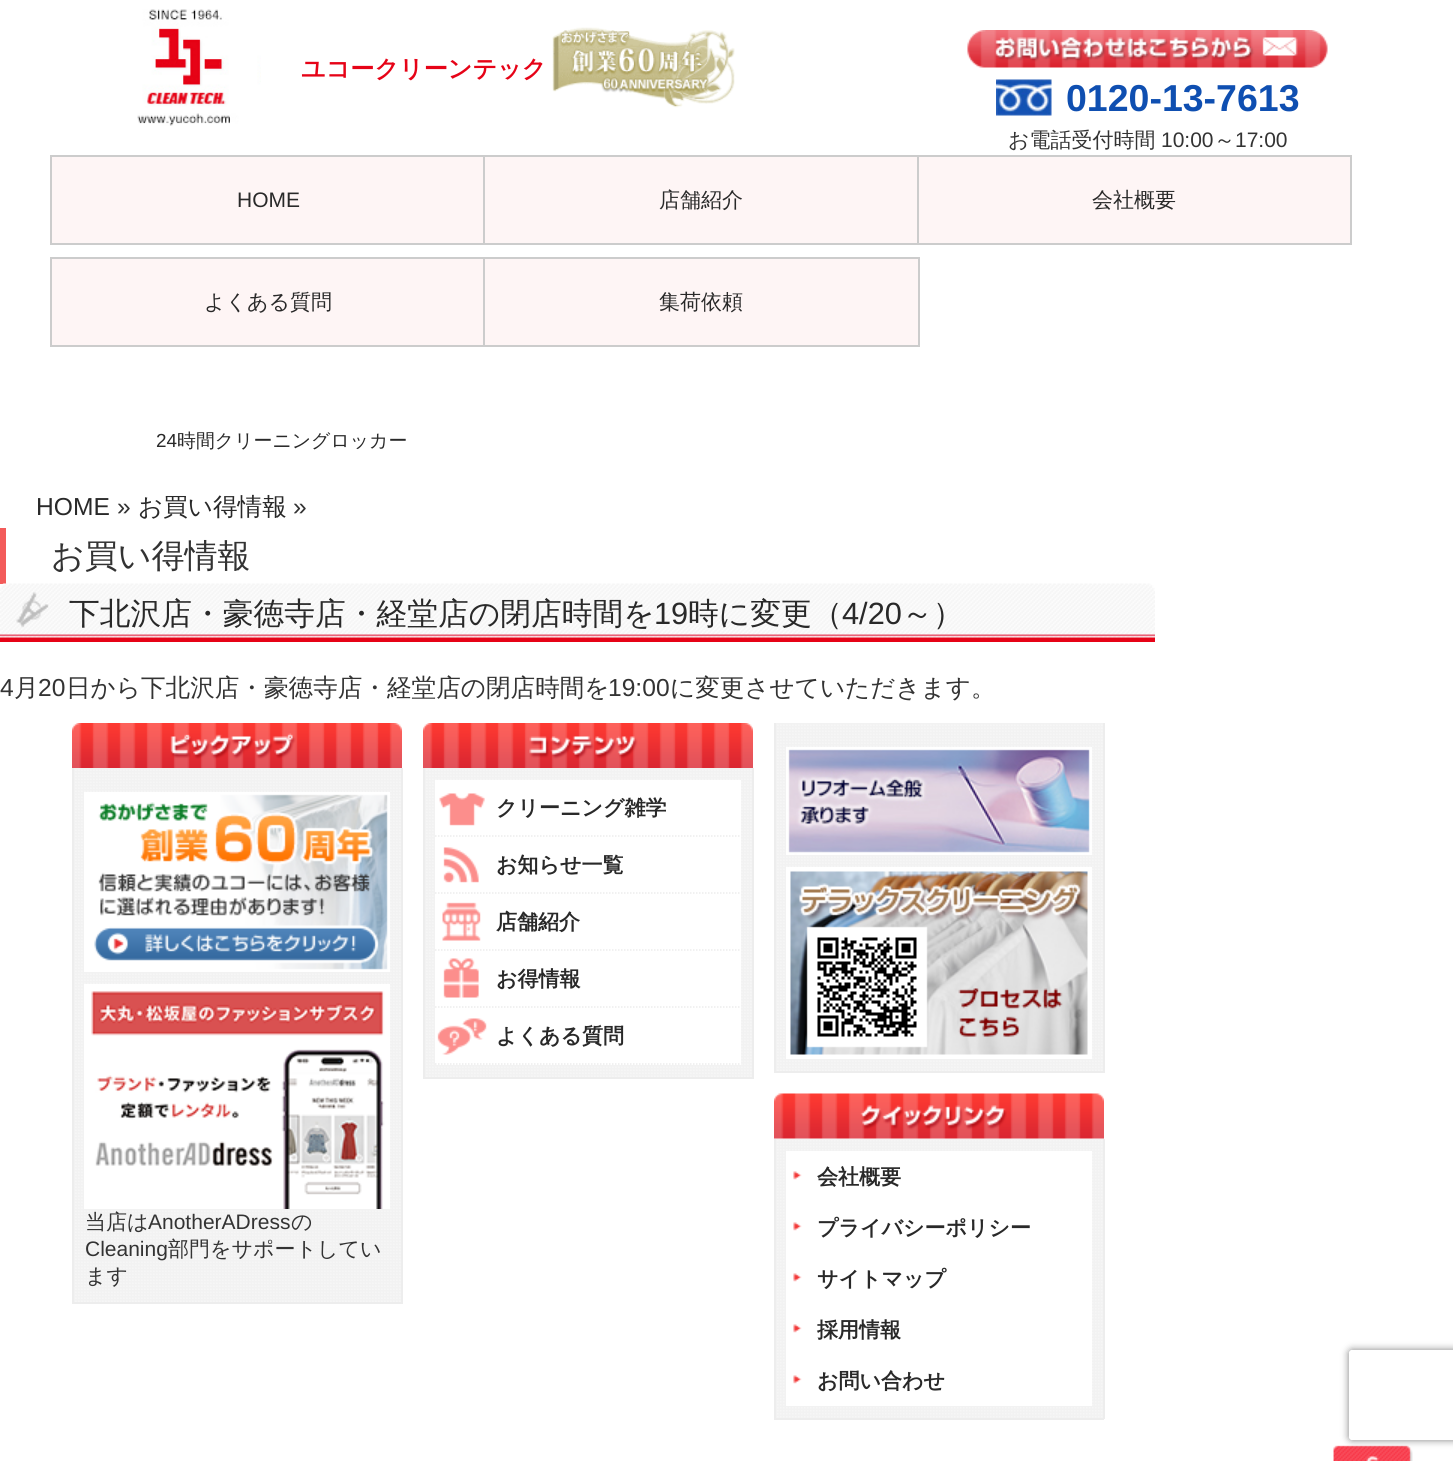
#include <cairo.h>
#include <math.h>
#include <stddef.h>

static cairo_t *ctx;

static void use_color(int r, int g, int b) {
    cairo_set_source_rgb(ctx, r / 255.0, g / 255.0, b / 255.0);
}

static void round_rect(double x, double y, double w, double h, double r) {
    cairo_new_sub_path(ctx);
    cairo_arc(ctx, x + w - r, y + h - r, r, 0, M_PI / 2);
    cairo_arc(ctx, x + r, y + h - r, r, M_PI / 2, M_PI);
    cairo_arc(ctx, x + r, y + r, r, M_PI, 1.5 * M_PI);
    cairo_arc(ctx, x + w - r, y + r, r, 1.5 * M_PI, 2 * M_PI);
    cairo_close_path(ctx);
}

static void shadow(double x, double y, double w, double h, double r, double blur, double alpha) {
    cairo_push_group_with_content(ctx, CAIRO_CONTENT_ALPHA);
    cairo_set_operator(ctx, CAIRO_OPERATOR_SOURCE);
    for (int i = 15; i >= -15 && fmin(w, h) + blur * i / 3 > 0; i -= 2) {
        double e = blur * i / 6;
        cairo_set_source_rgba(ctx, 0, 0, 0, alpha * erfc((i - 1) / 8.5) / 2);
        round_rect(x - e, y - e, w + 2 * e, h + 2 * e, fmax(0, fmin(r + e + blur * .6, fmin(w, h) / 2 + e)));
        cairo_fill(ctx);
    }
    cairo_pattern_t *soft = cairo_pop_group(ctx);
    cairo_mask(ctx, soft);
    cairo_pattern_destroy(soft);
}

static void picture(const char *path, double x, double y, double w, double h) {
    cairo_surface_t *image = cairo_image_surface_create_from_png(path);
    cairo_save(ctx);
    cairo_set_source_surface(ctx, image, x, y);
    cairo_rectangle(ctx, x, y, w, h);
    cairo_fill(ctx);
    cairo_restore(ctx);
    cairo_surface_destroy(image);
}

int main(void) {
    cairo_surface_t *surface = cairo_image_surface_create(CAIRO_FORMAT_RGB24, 1453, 1461);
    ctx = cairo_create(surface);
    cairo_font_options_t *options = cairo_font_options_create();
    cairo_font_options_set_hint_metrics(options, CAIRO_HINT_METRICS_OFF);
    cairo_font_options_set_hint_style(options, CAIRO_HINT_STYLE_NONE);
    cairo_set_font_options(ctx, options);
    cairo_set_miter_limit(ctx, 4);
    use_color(255, 255, 255);
    cairo_paint(ctx);
    picture("img1.png", 137, 9, 124, 117);
    cairo_select_font_face(ctx, "WenQuanYi Zen Hei", CAIRO_FONT_SLANT_NORMAL, CAIRO_FONT_WEIGHT_BOLD);
    cairo_set_font_size(ctx, 24.1);
    use_color(230, 3, 23);
    cairo_move_to(ctx, 301, 77);
    cairo_show_text(ctx, "ユコークリーンテック");
    picture("img2.png", 552, 27, 183, 81);
    picture("img3.png", 967, 30, 361, 38);
    picture("img4.png", 996, 79, 56, 37);
    cairo_select_font_face(ctx, "Liberation Sans", CAIRO_FONT_SLANT_NORMAL, CAIRO_FONT_WEIGHT_BOLD);
    cairo_set_font_size(ctx, 37.5);
    use_color(15, 79, 177);
    cairo_move_to(ctx, 1066, 111);
    cairo_show_text(ctx, "0120-13-7613");
    cairo_select_font_face(ctx, "WenQuanYi Zen Hei Medium", CAIRO_FONT_SLANT_NORMAL, CAIRO_FONT_WEIGHT_NORMAL);
    cairo_set_font_size(ctx, 21);
    use_color(51, 51, 51);
    cairo_move_to(ctx, 1008, 147);
    cairo_show_text(ctx, "お電話受付時間");
    cairo_select_font_face(ctx, "Liberation Sans", CAIRO_FONT_SLANT_NORMAL, CAIRO_FONT_WEIGHT_NORMAL);
    cairo_move_to(ctx, 1161, 147);
    cairo_show_text(ctx, "10:00");
    cairo_select_font_face(ctx, "WenQuanYi Zen Hei Medium", CAIRO_FONT_SLANT_NORMAL, CAIRO_FONT_WEIGHT_NORMAL);
    cairo_move_to(ctx, 1214, 147);
    cairo_show_text(ctx, "～");
    cairo_select_font_face(ctx, "Liberation Sans", CAIRO_FONT_SLANT_NORMAL, CAIRO_FONT_WEIGHT_NORMAL);
    cairo_move_to(ctx, 1235, 147);
    cairo_show_text(ctx, "17:00");
    use_color(254, 245, 245);
    cairo_rectangle(ctx, 52, 157, 431, 86);
    cairo_fill(ctx);
    cairo_rectangle(ctx, 51, 156, 434, 88);
    use_color(204, 204, 204);
    cairo_stroke(ctx);
    use_color(41, 41, 41);
    cairo_move_to(ctx, 237, 207);
    cairo_show_text(ctx, "HOME");
    use_color(254, 245, 245);
    cairo_rectangle(ctx, 485, 157, 432, 86);
    cairo_fill(ctx);
    cairo_rectangle(ctx, 484, 156, 435, 88);
    use_color(204, 204, 204);
    cairo_stroke(ctx);
    cairo_select_font_face(ctx, "WenQuanYi Zen Hei Medium", CAIRO_FONT_SLANT_NORMAL, CAIRO_FONT_WEIGHT_NORMAL);
    use_color(41, 41, 41);
    cairo_move_to(ctx, 659, 207);
    cairo_show_text(ctx, "店舗紹介");
    use_color(254, 245, 245);
    cairo_rectangle(ctx, 918, 156, 433, 88);
    cairo_fill_preserve(ctx);
    use_color(204, 204, 204);
    cairo_stroke(ctx);
    use_color(41, 41, 41);
    cairo_move_to(ctx, 1092, 207);
    cairo_show_text(ctx, "会社概要");
    use_color(254, 245, 245);
    cairo_rectangle(ctx, 52, 259, 431, 86);
    cairo_fill(ctx);
    cairo_rectangle(ctx, 51, 258, 434, 88);
    use_color(204, 204, 204);
    cairo_stroke(ctx);
    use_color(41, 41, 41);
    cairo_move_to(ctx, 204, 309);
    cairo_show_text(ctx, "よくある質問");
    use_color(254, 245, 245);
    cairo_rectangle(ctx, 484, 258, 435, 88);
    cairo_fill_preserve(ctx);
    use_color(204, 204, 204);
    cairo_stroke(ctx);
    use_color(41, 41, 41);
    cairo_move_to(ctx, 659, 309);
    cairo_show_text(ctx, "集荷依頼");
    cairo_select_font_face(ctx, "Liberation Sans", CAIRO_FONT_SLANT_NORMAL, CAIRO_FONT_WEIGHT_NORMAL);
    cairo_set_font_size(ctx, 18.9);
    cairo_move_to(ctx, 156, 447);
    cairo_show_text(ctx, "24");
    cairo_select_font_face(ctx, "WenQuanYi Zen Hei Medium", CAIRO_FONT_SLANT_NORMAL, CAIRO_FONT_WEIGHT_NORMAL);
    cairo_move_to(ctx, 177, 447);
    cairo_show_text(ctx, "時間クリーニングロッカー");
    cairo_select_font_face(ctx, "Liberation Sans", CAIRO_FONT_SLANT_NORMAL, CAIRO_FONT_WEIGHT_NORMAL);
    cairo_set_font_size(ctx, 24.6);
    cairo_move_to(ctx, 36, 515);
    cairo_show_text(ctx, "HOME");
    use_color(51, 51, 51);
    cairo_move_to(ctx, 117, 515);
    cairo_show_text(ctx, "»");
    cairo_select_font_face(ctx, "WenQuanYi Zen Hei Medium", CAIRO_FONT_SLANT_NORMAL, CAIRO_FONT_WEIGHT_NORMAL);
    use_color(41, 41, 41);
    cairo_move_to(ctx, 138, 515);
    cairo_show_text(ctx, "お買い得情報");
    cairo_select_font_face(ctx, "Liberation Sans", CAIRO_FONT_SLANT_NORMAL, CAIRO_FONT_WEIGHT_NORMAL);
    use_color(51, 51, 51);
    cairo_move_to(ctx, 293, 515);
    cairo_show_text(ctx, "»");
    use_color(243, 91, 90);
    cairo_rectangle(ctx, 0, 528, 6, 56);
    cairo_fill(ctx);
    cairo_select_font_face(ctx, "WenQuanYi Zen Hei Medium", CAIRO_FONT_SLANT_NORMAL, CAIRO_FONT_WEIGHT_NORMAL);
    cairo_set_font_size(ctx, 33);
    use_color(51, 51, 51);
    cairo_move_to(ctx, 51, 567);
    cairo_show_text(ctx, "お買い得情報");
    picture("img5.png", 0, 583, 1155, 59);
    cairo_set_font_size(ctx, 30.75);
    use_color(41, 41, 41);
    cairo_move_to(ctx, 69, 624);
    cairo_show_text(ctx, "下北沢店・豪徳寺店・経堂店の閉店時間を");
    cairo_select_font_face(ctx, "Liberation Sans", CAIRO_FONT_SLANT_NORMAL, CAIRO_FONT_WEIGHT_NORMAL);
    cairo_move_to(ctx, 654, 624);
    cairo_show_text(ctx, "19");
    cairo_select_font_face(ctx, "WenQuanYi Zen Hei Medium", CAIRO_FONT_SLANT_NORMAL, CAIRO_FONT_WEIGHT_NORMAL);
    cairo_move_to(ctx, 688, 624);
    cairo_show_text(ctx, "時に変更（");
    cairo_select_font_face(ctx, "Liberation Sans", CAIRO_FONT_SLANT_NORMAL, CAIRO_FONT_WEIGHT_NORMAL);
    cairo_move_to(ctx, 842, 624);
    cairo_show_text(ctx, "4/20");
    cairo_select_font_face(ctx, "WenQuanYi Zen Hei Medium", CAIRO_FONT_SLANT_NORMAL, CAIRO_FONT_WEIGHT_NORMAL);
    cairo_move_to(ctx, 902, 624);
    cairo_show_text(ctx, "～）");
    cairo_select_font_face(ctx, "Liberation Sans", CAIRO_FONT_SLANT_NORMAL, CAIRO_FONT_WEIGHT_NORMAL);
    cairo_set_font_size(ctx, 24.6);
    use_color(51, 51, 51);
    cairo_move_to(ctx, 0, 696);
    cairo_show_text(ctx, "4");
    cairo_select_font_face(ctx, "WenQuanYi Zen Hei Medium", CAIRO_FONT_SLANT_NORMAL, CAIRO_FONT_WEIGHT_NORMAL);
    cairo_move_to(ctx, 14, 696);
    cairo_show_text(ctx, "月");
    cairo_select_font_face(ctx, "Liberation Sans", CAIRO_FONT_SLANT_NORMAL, CAIRO_FONT_WEIGHT_NORMAL);
    cairo_move_to(ctx, 38, 696);
    cairo_show_text(ctx, "20");
    cairo_select_font_face(ctx, "WenQuanYi Zen Hei Medium", CAIRO_FONT_SLANT_NORMAL, CAIRO_FONT_WEIGHT_NORMAL);
    cairo_move_to(ctx, 66, 696);
    cairo_show_text(ctx, "日から下北沢店・豪徳寺店・経堂店の閉店時間を");
    cairo_select_font_face(ctx, "Liberation Sans", CAIRO_FONT_SLANT_NORMAL, CAIRO_FONT_WEIGHT_NORMAL);
    cairo_move_to(ctx, 608, 696);
    cairo_show_text(ctx, "19:00");
    cairo_select_font_face(ctx, "WenQuanYi Zen Hei Medium", CAIRO_FONT_SLANT_NORMAL, CAIRO_FONT_WEIGHT_NORMAL);
    cairo_move_to(ctx, 670, 696);
    cairo_show_text(ctx, "に変更させていただきます。");
    picture("img6.png", 423, 723, 330, 45);
    picture("img7.png", 425, 768, 327, 309);
    use_color(237, 237, 237);
    cairo_rectangle(ctx, 752, 768, 2, 311);
    cairo_fill(ctx);
    cairo_rectangle(ctx, 423, 1077, 330, 2);
    cairo_fill(ctx);
    cairo_rectangle(ctx, 423, 768, 2, 311);
    cairo_fill(ctx);
    use_color(255, 255, 255);
    cairo_rectangle(ctx, 435, 780, 306, 285);
    cairo_fill(ctx);
    picture("img8.png", 439, 793, 46, 33);
    cairo_new_path(ctx);
    cairo_move_to(ctx, 435, 836);
    cairo_line_to(ctx, 741, 836);
    use_color(237, 237, 237);
    cairo_set_line_width(ctx, 1.5);
    cairo_set_dash(ctx, (double[]){1.5, 1.5}, 2, 0);
    cairo_stroke(ctx);
    cairo_select_font_face(ctx, "WenQuanYi Zen Hei", CAIRO_FONT_SLANT_NORMAL, CAIRO_FONT_WEIGHT_BOLD);
    cairo_set_font_size(ctx, 21);
    use_color(41, 41, 41);
    cairo_move_to(ctx, 496, 815);
    cairo_show_text(ctx, "クリーニング雑学");
    picture("img9.png", 443, 847, 36, 36);
    cairo_new_path(ctx);
    cairo_move_to(ctx, 435, 893);
    cairo_line_to(ctx, 741, 893);
    use_color(237, 237, 237);
    cairo_stroke(ctx);
    use_color(41, 41, 41);
    cairo_move_to(ctx, 496, 872);
    cairo_show_text(ctx, "お知らせ一覧");
    picture("img10.png", 442, 902, 39, 39);
    cairo_new_path(ctx);
    cairo_move_to(ctx, 435, 950);
    cairo_line_to(ctx, 741, 950);
    use_color(237, 237, 237);
    cairo_stroke(ctx);
    use_color(41, 41, 41);
    cairo_move_to(ctx, 496, 929);
    cairo_show_text(ctx, "店舗紹介");
    picture("img11.png", 443, 958, 36, 40);
    cairo_new_path(ctx);
    cairo_move_to(ctx, 435, 1007);
    cairo_line_to(ctx, 741, 1007);
    use_color(237, 237, 237);
    cairo_stroke(ctx);
    use_color(41, 41, 41);
    cairo_move_to(ctx, 496, 986);
    cairo_show_text(ctx, "お得情報");
    picture("img12.png", 437, 1018, 50, 37);
    cairo_new_path(ctx);
    cairo_move_to(ctx, 435, 1064);
    cairo_line_to(ctx, 741, 1064);
    use_color(237, 237, 237);
    cairo_stroke(ctx);
    use_color(41, 41, 41);
    cairo_move_to(ctx, 496, 1043);
    cairo_show_text(ctx, "よくある質問");
    picture("img13.png", 776, 723, 327, 348);
    use_color(237, 237, 237);
    cairo_rectangle(ctx, 1103, 723, 2, 350);
    cairo_fill(ctx);
    cairo_rectangle(ctx, 774, 1071, 330, 2);
    cairo_fill(ctx);
    cairo_rectangle(ctx, 774, 723, 2, 350);
    cairo_fill(ctx);
    picture("img14.png", 786, 747, 306, 108);
    picture("img15.png", 786, 867, 306, 192);
    picture("img16.png", 72, 723, 330, 45);
    picture("img17.png", 74, 768, 327, 534);
    cairo_rectangle(ctx, 401, 768, 2, 536);
    cairo_fill(ctx);
    cairo_rectangle(ctx, 72, 1302, 330, 2);
    cairo_fill(ctx);
    cairo_rectangle(ctx, 72, 768, 2, 536);
    cairo_fill(ctx);
    picture("img18.png", 84, 792, 306, 180);
    picture("img19.png", 84, 984, 306, 225);
    cairo_select_font_face(ctx, "WenQuanYi Zen Hei Medium", CAIRO_FONT_SLANT_NORMAL, CAIRO_FONT_WEIGHT_NORMAL);
    use_color(51, 51, 51);
    cairo_move_to(ctx, 85, 1229);
    cairo_show_text(ctx, "当店は");
    cairo_select_font_face(ctx, "Liberation Sans", CAIRO_FONT_SLANT_NORMAL, CAIRO_FONT_WEIGHT_NORMAL);
    cairo_move_to(ctx, 148, 1229);
    cairo_show_text(ctx, "AnotherADress");
    cairo_select_font_face(ctx, "WenQuanYi Zen Hei Medium", CAIRO_FONT_SLANT_NORMAL, CAIRO_FONT_WEIGHT_NORMAL);
    cairo_move_to(ctx, 291, 1229);
    cairo_show_text(ctx, "の");
    cairo_select_font_face(ctx, "Liberation Sans", CAIRO_FONT_SLANT_NORMAL, CAIRO_FONT_WEIGHT_NORMAL);
    cairo_move_to(ctx, 85, 1256);
    cairo_show_text(ctx, "Cleaning");
    cairo_select_font_face(ctx, "WenQuanYi Zen Hei Medium", CAIRO_FONT_SLANT_NORMAL, CAIRO_FONT_WEIGHT_NORMAL);
    cairo_move_to(ctx, 168, 1256);
    cairo_show_text(ctx, "部門をサポートしてい");
    cairo_move_to(ctx, 85, 1283);
    cairo_show_text(ctx, "ます");
    picture("img21.png", 774, 1138, 330, 280);
    picture("img20.png", 774, 1093, 330, 46);
    use_color(237, 237, 237);
    cairo_rectangle(ctx, 1103, 1139, 2, 280);
    cairo_fill(ctx);
    cairo_rectangle(ctx, 774, 1418, 330, 2);
    cairo_fill(ctx);
    cairo_rectangle(ctx, 774, 1139, 2, 280);
    cairo_fill(ctx);
    use_color(255, 255, 255);
    cairo_rectangle(ctx, 786, 1151, 306, 255);
    cairo_fill(ctx);
    picture("img22.png", 793, 1171, 9, 9);
    cairo_select_font_face(ctx, "WenQuanYi Zen Hei", CAIRO_FONT_SLANT_NORMAL, CAIRO_FONT_WEIGHT_BOLD);
    use_color(41, 41, 41);
    cairo_move_to(ctx, 817, 1184);
    cairo_show_text(ctx, "会社概要");
    picture("img22.png", 793, 1222, 9, 9);
    cairo_move_to(ctx, 817, 1235);
    cairo_show_text(ctx, "プライバシーポリシー");
    picture("img22.png", 793, 1273, 9, 9);
    cairo_move_to(ctx, 817, 1286);
    cairo_show_text(ctx, "サイトマップ");
    picture("img22.png", 793, 1324, 9, 9);
    cairo_move_to(ctx, 817, 1337);
    cairo_show_text(ctx, "採用情報");
    picture("img22.png", 793, 1375, 9, 9);
    cairo_move_to(ctx, 817, 1388);
    cairo_show_text(ctx, "お問い合わせ");
    picture("img23.png", 1333, 1445, 80, 16);
    cairo_save(ctx);
    cairo_set_fill_rule(ctx, CAIRO_FILL_RULE_EVEN_ODD);
    cairo_new_path(ctx);
    cairo_move_to(ctx, 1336, 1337);
    cairo_line_to(ctx, 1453, 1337);
    cairo_line_to(ctx, 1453, 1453);
    cairo_line_to(ctx, 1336, 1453);
    cairo_close_path(ctx);
    cairo_move_to(ctx, 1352, 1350);
    cairo_line_to(ctx, 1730, 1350);
    cairo_curve_to(ctx, 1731.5, 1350, 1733, 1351.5, 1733, 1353);
    cairo_line_to(ctx, 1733, 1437);
    cairo_curve_to(ctx, 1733, 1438.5, 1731.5, 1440, 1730, 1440);
    cairo_line_to(ctx, 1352, 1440);
    cairo_curve_to(ctx, 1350.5, 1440, 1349, 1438.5, 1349, 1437);
    cairo_line_to(ctx, 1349, 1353);
    cairo_curve_to(ctx, 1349, 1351.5, 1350.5, 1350, 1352, 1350);
    cairo_close_path(ctx);
    cairo_clip(ctx);
    use_color(128, 128, 128);
    shadow(1349, 1350, 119, 90, 3, 4, 1);
    cairo_restore(ctx);
    cairo_surface_write_to_png(surface, "result.png");
    cairo_font_options_destroy(options);
    cairo_destroy(ctx);
    cairo_surface_destroy(surface);
    return 0;
}
